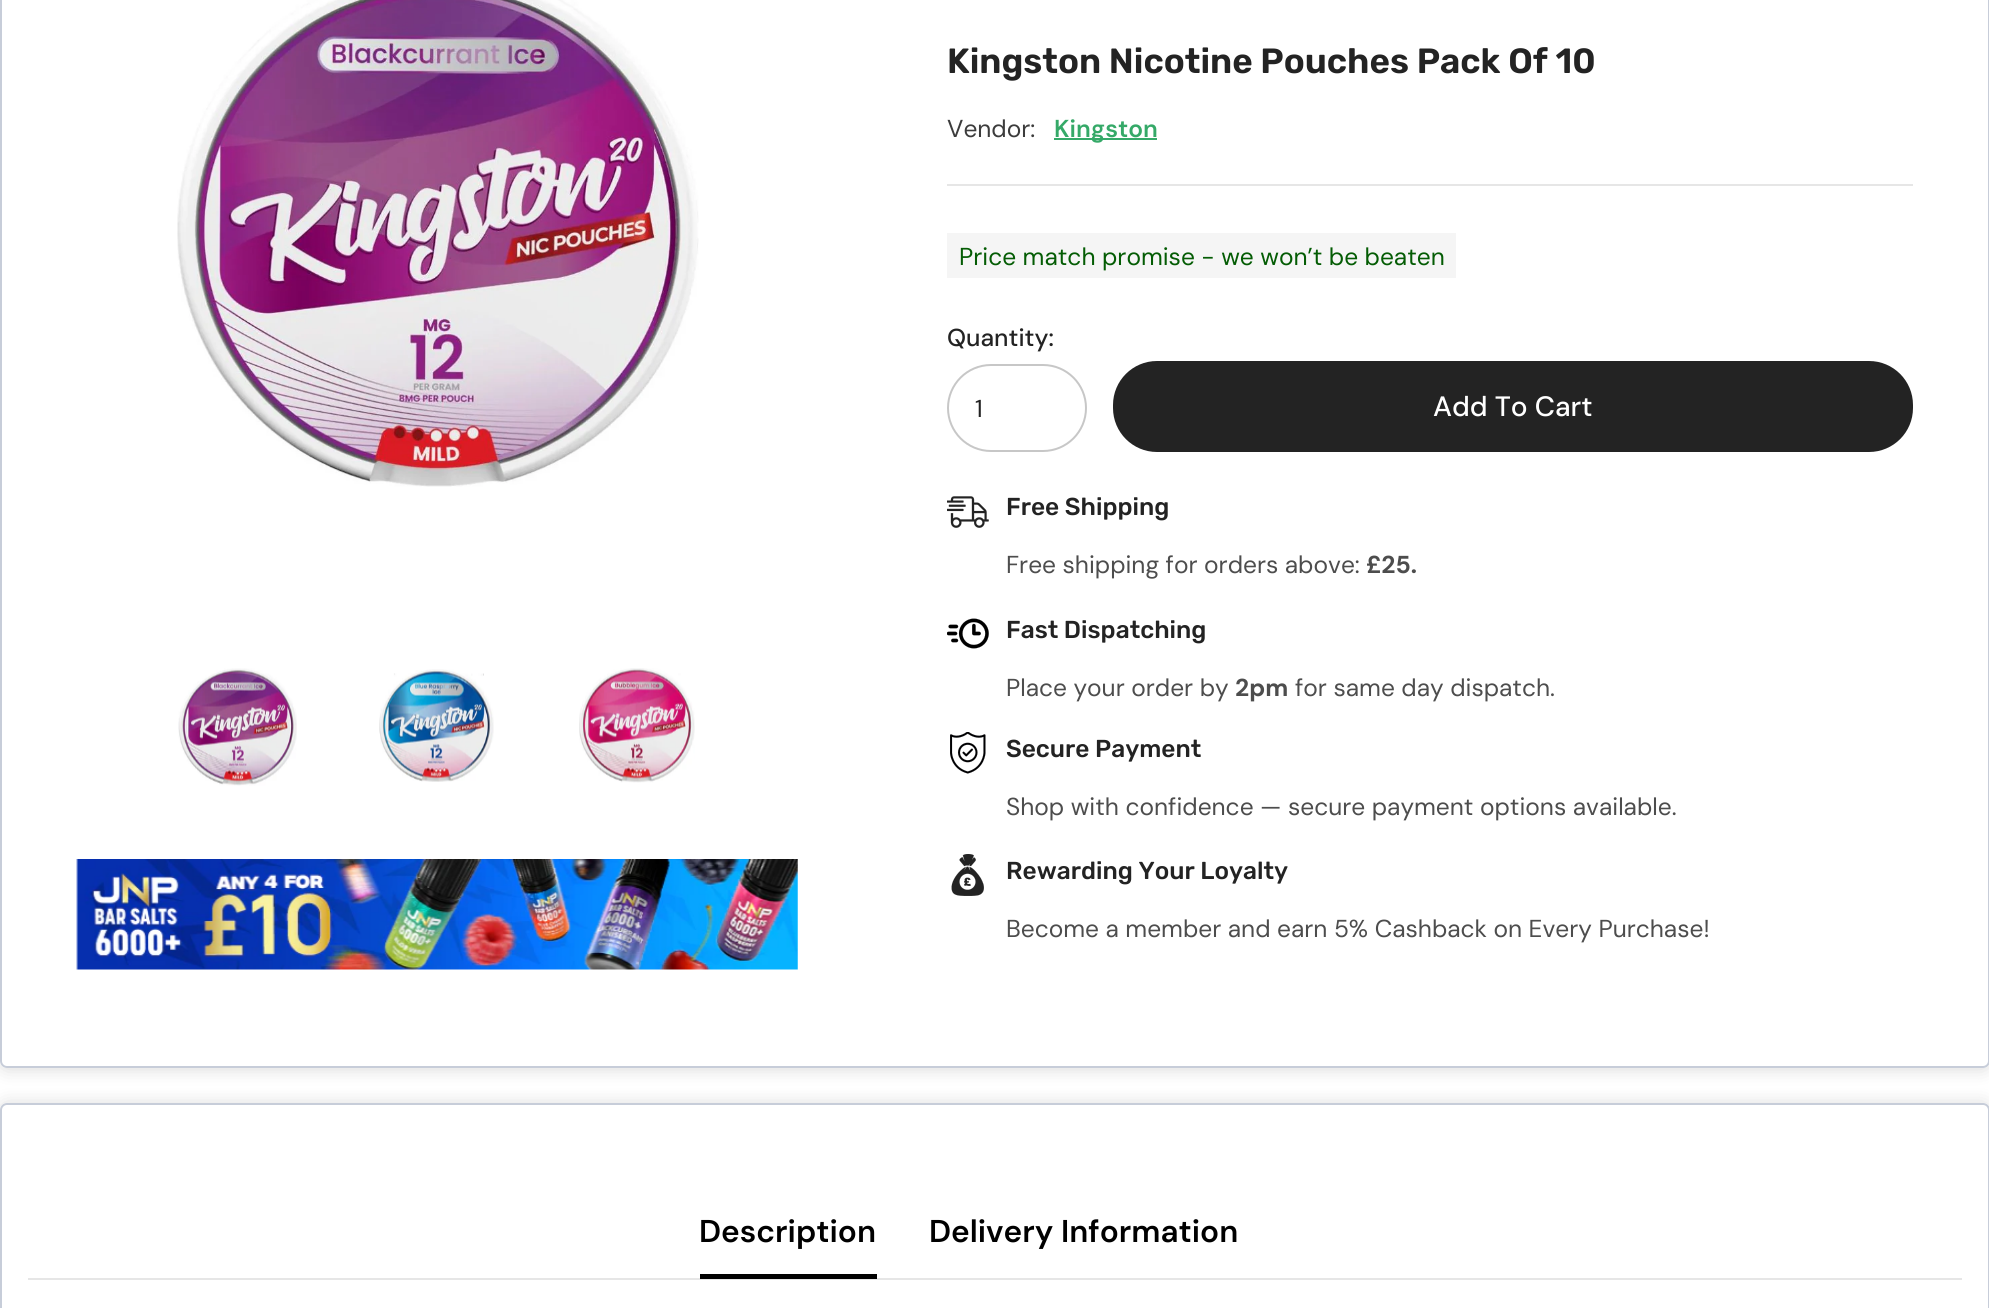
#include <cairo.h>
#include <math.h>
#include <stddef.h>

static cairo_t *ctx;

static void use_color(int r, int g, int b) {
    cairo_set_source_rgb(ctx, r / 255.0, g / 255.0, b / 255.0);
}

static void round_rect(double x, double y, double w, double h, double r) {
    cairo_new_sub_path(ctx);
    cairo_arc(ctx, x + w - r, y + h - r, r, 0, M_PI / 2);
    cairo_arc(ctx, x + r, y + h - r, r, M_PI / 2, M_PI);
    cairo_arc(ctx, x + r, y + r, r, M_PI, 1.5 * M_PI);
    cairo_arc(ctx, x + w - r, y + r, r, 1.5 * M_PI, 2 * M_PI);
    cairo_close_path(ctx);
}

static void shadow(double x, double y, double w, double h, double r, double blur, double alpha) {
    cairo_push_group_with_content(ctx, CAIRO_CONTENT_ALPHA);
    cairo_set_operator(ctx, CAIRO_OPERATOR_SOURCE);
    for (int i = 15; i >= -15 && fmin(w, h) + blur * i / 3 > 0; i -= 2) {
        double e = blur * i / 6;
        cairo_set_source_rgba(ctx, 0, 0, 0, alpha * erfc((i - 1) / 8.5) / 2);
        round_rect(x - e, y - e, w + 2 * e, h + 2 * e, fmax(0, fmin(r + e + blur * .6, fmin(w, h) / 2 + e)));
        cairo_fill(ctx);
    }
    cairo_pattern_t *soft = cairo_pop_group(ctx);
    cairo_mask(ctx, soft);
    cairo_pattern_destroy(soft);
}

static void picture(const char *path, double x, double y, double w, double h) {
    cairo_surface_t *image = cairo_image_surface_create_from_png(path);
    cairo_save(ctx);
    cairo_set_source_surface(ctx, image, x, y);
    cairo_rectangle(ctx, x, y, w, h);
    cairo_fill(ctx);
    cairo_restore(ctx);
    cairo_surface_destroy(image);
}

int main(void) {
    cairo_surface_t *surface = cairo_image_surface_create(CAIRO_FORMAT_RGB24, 1989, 1308);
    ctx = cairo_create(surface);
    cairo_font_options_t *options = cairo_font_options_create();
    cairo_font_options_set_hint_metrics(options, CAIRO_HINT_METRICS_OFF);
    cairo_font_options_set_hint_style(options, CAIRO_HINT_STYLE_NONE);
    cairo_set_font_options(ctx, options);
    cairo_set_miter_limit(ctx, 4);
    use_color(255, 255, 255);
    cairo_paint(ctx);
    cairo_save(ctx);
    cairo_set_fill_rule(ctx, CAIRO_FILL_RULE_EVEN_ODD);
    cairo_new_path(ctx);
    cairo_move_to(ctx, 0, 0);
    cairo_line_to(ctx, 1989, 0);
    cairo_line_to(ctx, 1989, 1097);
    cairo_line_to(ctx, 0, 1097);
    cairo_close_path(ctx);
    cairo_move_to(ctx, 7, -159);
    cairo_line_to(ctx, 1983, -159);
    cairo_curve_to(ctx, 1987, -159, 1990, -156, 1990, -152);
    cairo_line_to(ctx, 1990, 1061);
    cairo_curve_to(ctx, 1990, 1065, 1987, 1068, 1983, 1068);
    cairo_line_to(ctx, 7, 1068);
    cairo_curve_to(ctx, 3, 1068, 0, 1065, 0, 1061);
    cairo_line_to(ctx, 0, -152);
    cairo_curve_to(ctx, 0, -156, 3, -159, 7, -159);
    cairo_close_path(ctx);
    cairo_clip(ctx);
    use_color(0, 0, 0);
    shadow(0, -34, 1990, 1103, 7, 9, 0.15);
    cairo_restore(ctx);
    round_rect(1, -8, 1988, 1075, 6);
    use_color(199, 205, 217);
    cairo_stroke(ctx);
    picture("img1.png", 177, 0, 522, 487);
    picture("img2.png", 178, 668, 119, 118);
    picture("img3.png", 379, 669, 115, 113);
    picture("img4.png", 579, 668, 116, 115);
    picture("img5.png", 76, 859, 722, 111);
    cairo_select_font_face(ctx, "Rubik SemiBold", CAIRO_FONT_SLANT_NORMAL, CAIRO_FONT_WEIGHT_NORMAL);
    cairo_set_font_size(ctx, 35);
    use_color(35, 35, 35);
    cairo_move_to(ctx, 947, 73);
    cairo_show_text(ctx, "Kingston Nicotine Pouches Pack Of 10");
    use_color(230, 230, 230);
    cairo_rectangle(ctx, 947, 184, 966, 2);
    cairo_fill(ctx);
    cairo_select_font_face(ctx, "DM Sans", CAIRO_FONT_SLANT_NORMAL, CAIRO_FONT_WEIGHT_NORMAL);
    cairo_set_font_size(ctx, 24.5);
    use_color(60, 60, 60);
    cairo_move_to(ctx, 947, 137);
    cairo_show_text(ctx, "Vendor:");
    use_color(53, 169, 104);
    cairo_rectangle(ctx, 1054, 138, 103, 2);
    cairo_fill(ctx);
    cairo_select_font_face(ctx, "DM Sans SemiBold", CAIRO_FONT_SLANT_NORMAL, CAIRO_FONT_WEIGHT_NORMAL);
    cairo_move_to(ctx, 1054, 137);
    cairo_show_text(ctx, "Kingston");
    use_color(245, 245, 245);
    cairo_rectangle(ctx, 947, 233, 509, 45);
    cairo_fill(ctx);
    cairo_select_font_face(ctx, "DM Sans", CAIRO_FONT_SLANT_NORMAL, CAIRO_FONT_WEIGHT_NORMAL);
    use_color(4, 92, 4);
    cairo_move_to(ctx, 959, 265);
    cairo_show_text(ctx, "Price match promise - we won’t be beaten");
    cairo_select_font_face(ctx, "DM Sans Medium", CAIRO_FONT_SLANT_NORMAL, CAIRO_FONT_WEIGHT_NORMAL);
    use_color(35, 35, 35);
    cairo_move_to(ctx, 947, 346);
    cairo_show_text(ctx, "Quantity:");
    round_rect(948, 365, 138, 86, 43);
    use_color(199, 199, 199);
    cairo_stroke(ctx);
    cairo_select_font_face(ctx, "DM Sans", CAIRO_FONT_SLANT_NORMAL, CAIRO_FONT_WEIGHT_NORMAL);
    use_color(35, 35, 35);
    cairo_move_to(ctx, 975, 417);
    cairo_show_text(ctx, "1");
    round_rect(1114, 362, 798, 89, 43);
    cairo_fill_preserve(ctx);
    cairo_stroke(ctx);
    cairo_select_font_face(ctx, "DM Sans Medium", CAIRO_FONT_SLANT_NORMAL, CAIRO_FONT_WEIGHT_NORMAL);
    cairo_set_font_size(ctx, 28);
    use_color(255, 255, 255);
    cairo_move_to(ctx, 1433, 416);
    cairo_show_text(ctx, "Add To Cart");
    picture("img6.png", 947, 496, 42, 32);
    cairo_select_font_face(ctx, "Rubik Medium", CAIRO_FONT_SLANT_NORMAL, CAIRO_FONT_WEIGHT_NORMAL);
    cairo_set_font_size(ctx, 24.5);
    use_color(35, 35, 35);
    cairo_move_to(ctx, 1006, 515);
    cairo_show_text(ctx, "Free Shipping");
    cairo_select_font_face(ctx, "DM Sans", CAIRO_FONT_SLANT_NORMAL, CAIRO_FONT_WEIGHT_NORMAL);
    use_color(77, 77, 77);
    cairo_move_to(ctx, 1006, 573);
    cairo_show_text(ctx, "Free shipping for orders above:");
    cairo_select_font_face(ctx, "DM Sans", CAIRO_FONT_SLANT_NORMAL, CAIRO_FONT_WEIGHT_BOLD);
    cairo_move_to(ctx, 1366, 573);
    cairo_show_text(ctx, "£25.");
    picture("img7.png", 947, 618, 42, 31);
    cairo_select_font_face(ctx, "Rubik Medium", CAIRO_FONT_SLANT_NORMAL, CAIRO_FONT_WEIGHT_NORMAL);
    use_color(35, 35, 35);
    cairo_move_to(ctx, 1006, 638);
    cairo_show_text(ctx, "Fast Dispatching");
    cairo_select_font_face(ctx, "DM Sans", CAIRO_FONT_SLANT_NORMAL, CAIRO_FONT_WEIGHT_NORMAL);
    use_color(77, 77, 77);
    cairo_move_to(ctx, 1006, 696);
    cairo_show_text(ctx, "Place your order by");
    cairo_select_font_face(ctx, "DM Sans", CAIRO_FONT_SLANT_NORMAL, CAIRO_FONT_WEIGHT_BOLD);
    cairo_move_to(ctx, 1235, 696);
    cairo_show_text(ctx, "2pm");
    cairo_select_font_face(ctx, "DM Sans", CAIRO_FONT_SLANT_NORMAL, CAIRO_FONT_WEIGHT_NORMAL);
    cairo_move_to(ctx, 1295, 696);
    cairo_show_text(ctx, "for same day dispatch.");
    picture("img8.png", 950, 732, 36, 42);
    cairo_select_font_face(ctx, "Rubik Medium", CAIRO_FONT_SLANT_NORMAL, CAIRO_FONT_WEIGHT_NORMAL);
    use_color(35, 35, 35);
    cairo_move_to(ctx, 1006, 757);
    cairo_show_text(ctx, "Secure Payment");
    cairo_select_font_face(ctx, "DM Sans", CAIRO_FONT_SLANT_NORMAL, CAIRO_FONT_WEIGHT_NORMAL);
    use_color(77, 77, 77);
    cairo_move_to(ctx, 1006, 815);
    cairo_show_text(ctx, "Shop with confidence — secure payment options available.");
    picture("img9.png", 951, 854, 33, 42);
    cairo_select_font_face(ctx, "Rubik Medium", CAIRO_FONT_SLANT_NORMAL, CAIRO_FONT_WEIGHT_NORMAL);
    use_color(35, 35, 35);
    cairo_move_to(ctx, 1006, 879);
    cairo_show_text(ctx, "Rewarding Your Loyalty");
    cairo_select_font_face(ctx, "DM Sans", CAIRO_FONT_SLANT_NORMAL, CAIRO_FONT_WEIGHT_NORMAL);
    use_color(77, 77, 77);
    cairo_move_to(ctx, 1006, 937);
    cairo_show_text(ctx, "Become a member and earn 5% Cashback on Every Purchase!");
    cairo_save(ctx);
    cairo_set_fill_rule(ctx, CAIRO_FILL_RULE_EVEN_ODD);
    cairo_new_path(ctx);
    cairo_move_to(ctx, 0, 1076);
    cairo_line_to(ctx, 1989, 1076);
    cairo_line_to(ctx, 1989, 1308);
    cairo_line_to(ctx, 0, 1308);
    cairo_close_path(ctx);
    cairo_move_to(ctx, 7, 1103);
    cairo_line_to(ctx, 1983, 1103);
    cairo_curve_to(ctx, 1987, 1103, 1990, 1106, 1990, 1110);
    cairo_line_to(ctx, 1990, 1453);
    cairo_curve_to(ctx, 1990, 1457, 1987, 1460, 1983, 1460);
    cairo_line_to(ctx, 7, 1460);
    cairo_curve_to(ctx, 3, 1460, 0, 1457, 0, 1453);
    cairo_line_to(ctx, 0, 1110);
    cairo_curve_to(ctx, 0, 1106, 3, 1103, 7, 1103);
    cairo_close_path(ctx);
    cairo_clip(ctx);
    use_color(0, 0, 0);
    shadow(0, 1104, 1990, 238, 7, 9, 0.15);
    cairo_restore(ctx);
    round_rect(1, 1104, 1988, 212, 6);
    use_color(199, 205, 217);
    cairo_stroke(ctx);
    use_color(230, 230, 230);
    cairo_rectangle(ctx, 28, 1278, 1934, 2);
    cairo_fill(ctx);
    cairo_select_font_face(ctx, "DM Sans SemiBold", CAIRO_FONT_SLANT_NORMAL, CAIRO_FONT_WEIGHT_NORMAL);
    cairo_set_font_size(ctx, 31.5);
    use_color(0, 0, 0);
    cairo_move_to(ctx, 699, 1242);
    cairo_show_text(ctx, "Description");
    cairo_rectangle(ctx, 700, 1274, 177, 5);
    cairo_fill(ctx);
    cairo_move_to(ctx, 929, 1242);
    cairo_show_text(ctx, "Delivery Information");
    cairo_surface_write_to_png(surface, "result.png");
    cairo_font_options_destroy(options);
    cairo_destroy(ctx);
    cairo_surface_destroy(surface);
    return 0;
}
